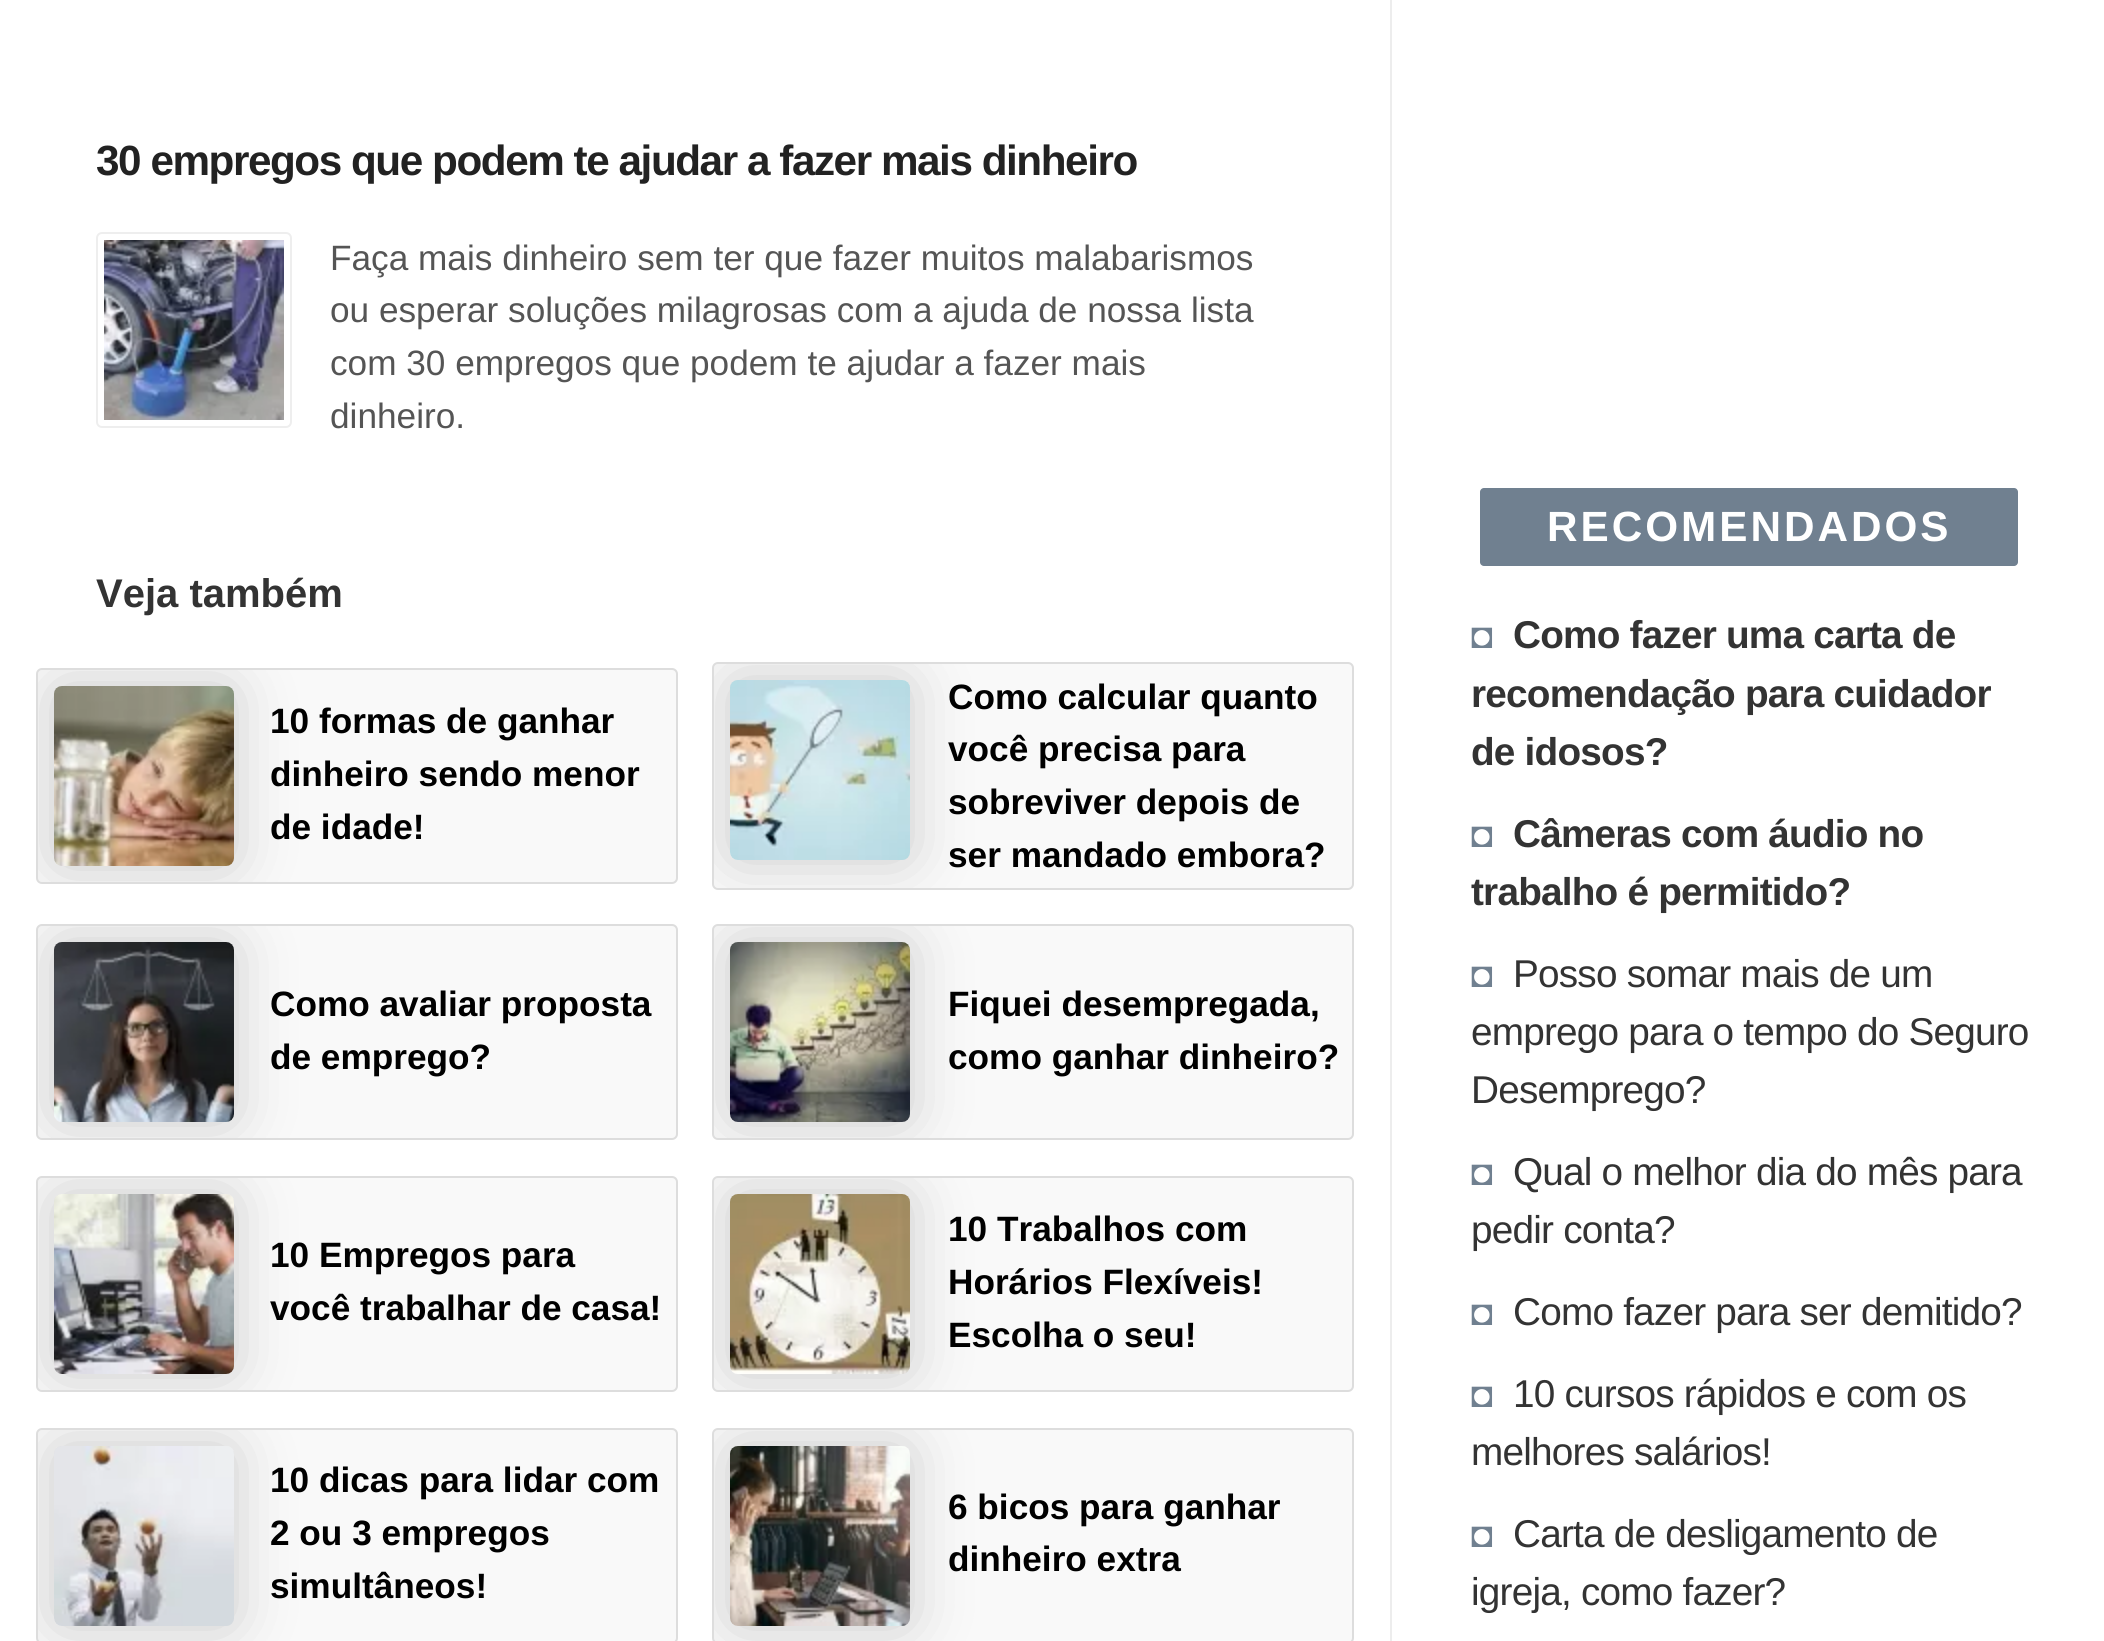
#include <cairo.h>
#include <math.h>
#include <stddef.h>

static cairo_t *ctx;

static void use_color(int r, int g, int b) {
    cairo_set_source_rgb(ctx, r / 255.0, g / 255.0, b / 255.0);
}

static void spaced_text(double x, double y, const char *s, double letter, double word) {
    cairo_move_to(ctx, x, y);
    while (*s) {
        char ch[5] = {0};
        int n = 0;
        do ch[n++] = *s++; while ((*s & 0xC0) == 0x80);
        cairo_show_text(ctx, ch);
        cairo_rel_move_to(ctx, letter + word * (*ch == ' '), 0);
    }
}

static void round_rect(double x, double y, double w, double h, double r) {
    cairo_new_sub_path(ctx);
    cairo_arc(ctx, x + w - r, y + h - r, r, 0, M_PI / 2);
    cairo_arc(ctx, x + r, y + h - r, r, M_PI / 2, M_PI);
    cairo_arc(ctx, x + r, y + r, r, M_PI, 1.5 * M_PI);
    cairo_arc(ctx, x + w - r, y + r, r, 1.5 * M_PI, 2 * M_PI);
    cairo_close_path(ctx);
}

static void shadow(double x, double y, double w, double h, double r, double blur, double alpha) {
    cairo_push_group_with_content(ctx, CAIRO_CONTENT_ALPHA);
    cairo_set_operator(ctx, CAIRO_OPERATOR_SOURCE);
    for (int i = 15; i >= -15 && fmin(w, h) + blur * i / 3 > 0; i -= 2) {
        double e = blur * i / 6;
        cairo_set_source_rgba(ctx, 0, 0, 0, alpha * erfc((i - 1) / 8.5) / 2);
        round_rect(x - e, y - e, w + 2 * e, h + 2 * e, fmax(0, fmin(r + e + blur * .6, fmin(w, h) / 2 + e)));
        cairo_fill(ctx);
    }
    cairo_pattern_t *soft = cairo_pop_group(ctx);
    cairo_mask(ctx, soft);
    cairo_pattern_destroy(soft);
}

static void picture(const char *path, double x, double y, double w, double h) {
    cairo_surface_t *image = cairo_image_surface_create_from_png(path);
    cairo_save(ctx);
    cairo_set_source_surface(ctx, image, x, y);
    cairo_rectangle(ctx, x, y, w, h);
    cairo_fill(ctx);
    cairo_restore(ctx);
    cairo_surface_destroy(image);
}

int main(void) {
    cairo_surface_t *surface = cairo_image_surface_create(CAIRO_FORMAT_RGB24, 2104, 1641);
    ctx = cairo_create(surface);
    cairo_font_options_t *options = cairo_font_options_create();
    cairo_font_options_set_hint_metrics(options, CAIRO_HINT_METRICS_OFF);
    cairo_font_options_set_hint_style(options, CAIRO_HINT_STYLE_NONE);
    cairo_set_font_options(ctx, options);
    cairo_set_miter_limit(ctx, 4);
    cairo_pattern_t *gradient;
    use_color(255, 255, 255);
    cairo_paint(ctx);
    cairo_select_font_face(ctx, "Liberation Sans", CAIRO_FONT_SLANT_NORMAL, CAIRO_FONT_WEIGHT_BOLD);
    cairo_set_font_size(ctx, 42.25);
    use_color(34, 34, 34);
    spaced_text(96, 175, "30 empregos que podem te ajudar a fazer mais dinheiro", -1.45, 0);
    round_rect(97, 233, 194, 194, 5);
    use_color(238, 238, 238);
    cairo_stroke(ctx);
    picture("img1.png", 104, 240, 180, 180);
    cairo_select_font_face(ctx, "Liberation Sans", CAIRO_FONT_SLANT_NORMAL, CAIRO_FONT_WEIGHT_NORMAL);
    cairo_set_font_size(ctx, 35.2);
    use_color(85, 85, 85);
    cairo_move_to(ctx, 330, 270);
    cairo_show_text(ctx, "Faça mais dinheiro sem ter que fazer muitos malabarismos");
    cairo_move_to(ctx, 330, 322);
    cairo_show_text(ctx, "ou esperar soluções milagrosas com a ajuda de nossa lista");
    cairo_move_to(ctx, 330, 375);
    cairo_show_text(ctx, "com 30 empregos que podem te ajudar a fazer mais");
    cairo_move_to(ctx, 330, 428);
    cairo_show_text(ctx, "dinheiro.");
    cairo_select_font_face(ctx, "Liberation Sans", CAIRO_FONT_SLANT_NORMAL, CAIRO_FONT_WEIGHT_BOLD);
    cairo_set_font_size(ctx, 40);
    use_color(51, 51, 51);
    cairo_move_to(ctx, 96, 607);
    cairo_show_text(ctx, "Veja também");
    use_color(249, 249, 249);
    round_rect(37, 669, 640, 214, 5);
    cairo_fill_preserve(ctx);
    use_color(221, 221, 221);
    cairo_stroke(ctx);
    cairo_save(ctx);
    round_rect(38, 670, 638, 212, 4);
    cairo_clip(ctx);
    use_color(204, 204, 204);
    shadow(54, 686, 180, 180, 8, 30, 1);
    cairo_restore(ctx);
    gradient = cairo_pattern_create_linear(247, 848, 17, 687);
    cairo_pattern_add_color_stop_rgba(gradient, 0, 0.886, 0.886, 0.886, 1);
    cairo_pattern_add_color_stop_rgba(gradient, 0.07, 0.886, 0.886, 0.886, 1);
    cairo_pattern_add_color_stop_rgba(gradient, 0.07, 0.945, 0.945, 0.945, 1);
    cairo_pattern_add_color_stop_rgba(gradient, 0.14, 0.945, 0.945, 0.945, 1);
    cairo_pattern_add_color_stop_rgba(gradient, 0.14, 0.886, 0.886, 0.886, 1);
    cairo_pattern_add_color_stop_rgba(gradient, 0.21, 0.886, 0.886, 0.886, 1);
    cairo_pattern_add_color_stop_rgba(gradient, 0.21, 0.945, 0.945, 0.945, 1);
    cairo_pattern_add_color_stop_rgba(gradient, 0.29, 0.945, 0.945, 0.945, 1);
    cairo_pattern_add_color_stop_rgba(gradient, 0.29, 0.886, 0.886, 0.886, 1);
    cairo_pattern_add_color_stop_rgba(gradient, 0.36, 0.886, 0.886, 0.886, 1);
    cairo_pattern_add_color_stop_rgba(gradient, 0.36, 0.945, 0.945, 0.945, 1);
    cairo_pattern_add_color_stop_rgba(gradient, 0.43, 0.945, 0.945, 0.945, 1);
    cairo_pattern_add_color_stop_rgba(gradient, 0.43, 0.886, 0.886, 0.886, 1);
    cairo_pattern_add_color_stop_rgba(gradient, 0.5, 0.886, 0.886, 0.886, 1);
    cairo_pattern_add_color_stop_rgba(gradient, 0.5, 0.945, 0.945, 0.945, 1);
    cairo_pattern_add_color_stop_rgba(gradient, 0.57, 0.945, 0.945, 0.945, 1);
    cairo_pattern_add_color_stop_rgba(gradient, 0.57, 0.886, 0.886, 0.886, 1);
    cairo_pattern_add_color_stop_rgba(gradient, 0.64, 0.886, 0.886, 0.886, 1);
    cairo_pattern_add_color_stop_rgba(gradient, 0.64, 0.945, 0.945, 0.945, 1);
    cairo_pattern_add_color_stop_rgba(gradient, 0.71, 0.945, 0.945, 0.945, 1);
    cairo_pattern_add_color_stop_rgba(gradient, 0.71, 0.886, 0.886, 0.886, 1);
    cairo_pattern_add_color_stop_rgba(gradient, 0.79, 0.886, 0.886, 0.886, 1);
    cairo_pattern_add_color_stop_rgba(gradient, 0.79, 0.945, 0.945, 0.945, 1);
    cairo_pattern_add_color_stop_rgba(gradient, 0.86, 0.945, 0.945, 0.945, 1);
    cairo_pattern_add_color_stop_rgba(gradient, 0.86, 0.886, 0.886, 0.886, 1);
    cairo_pattern_add_color_stop_rgba(gradient, 0.93, 0.886, 0.886, 0.886, 1);
    cairo_pattern_add_color_stop_rgba(gradient, 0.93, 0.945, 0.945, 0.945, 1);
    cairo_pattern_add_color_stop_rgba(gradient, 1, 0.945, 0.945, 0.945, 1);
    cairo_set_source(ctx, gradient);
    cairo_pattern_destroy(gradient);
    round_rect(54, 686, 180, 180, 8);
    cairo_fill(ctx);
    picture("img2.png", 54, 686, 180, 180);
    cairo_set_font_size(ctx, 35.2);
    use_color(0, 0, 0);
    cairo_move_to(ctx, 270, 733);
    cairo_show_text(ctx, "10 formas de ganhar");
    cairo_move_to(ctx, 270, 786);
    cairo_show_text(ctx, "dinheiro sendo menor");
    cairo_move_to(ctx, 270, 839);
    cairo_show_text(ctx, "de idade!");
    use_color(249, 249, 249);
    round_rect(713, 663, 640, 226, 5);
    cairo_fill_preserve(ctx);
    use_color(221, 221, 221);
    cairo_stroke(ctx);
    cairo_save(ctx);
    round_rect(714, 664, 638, 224, 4);
    cairo_clip(ctx);
    use_color(204, 204, 204);
    shadow(730, 680, 180, 180, 8, 30, 1);
    cairo_restore(ctx);
    gradient = cairo_pattern_create_linear(923, 842, 693, 681);
    cairo_pattern_add_color_stop_rgba(gradient, 0, 0.886, 0.886, 0.886, 1);
    cairo_pattern_add_color_stop_rgba(gradient, 0.07, 0.886, 0.886, 0.886, 1);
    cairo_pattern_add_color_stop_rgba(gradient, 0.07, 0.945, 0.945, 0.945, 1);
    cairo_pattern_add_color_stop_rgba(gradient, 0.14, 0.945, 0.945, 0.945, 1);
    cairo_pattern_add_color_stop_rgba(gradient, 0.14, 0.886, 0.886, 0.886, 1);
    cairo_pattern_add_color_stop_rgba(gradient, 0.21, 0.886, 0.886, 0.886, 1);
    cairo_pattern_add_color_stop_rgba(gradient, 0.21, 0.945, 0.945, 0.945, 1);
    cairo_pattern_add_color_stop_rgba(gradient, 0.29, 0.945, 0.945, 0.945, 1);
    cairo_pattern_add_color_stop_rgba(gradient, 0.29, 0.886, 0.886, 0.886, 1);
    cairo_pattern_add_color_stop_rgba(gradient, 0.36, 0.886, 0.886, 0.886, 1);
    cairo_pattern_add_color_stop_rgba(gradient, 0.36, 0.945, 0.945, 0.945, 1);
    cairo_pattern_add_color_stop_rgba(gradient, 0.43, 0.945, 0.945, 0.945, 1);
    cairo_pattern_add_color_stop_rgba(gradient, 0.43, 0.886, 0.886, 0.886, 1);
    cairo_pattern_add_color_stop_rgba(gradient, 0.5, 0.886, 0.886, 0.886, 1);
    cairo_pattern_add_color_stop_rgba(gradient, 0.5, 0.945, 0.945, 0.945, 1);
    cairo_pattern_add_color_stop_rgba(gradient, 0.57, 0.945, 0.945, 0.945, 1);
    cairo_pattern_add_color_stop_rgba(gradient, 0.57, 0.886, 0.886, 0.886, 1);
    cairo_pattern_add_color_stop_rgba(gradient, 0.64, 0.886, 0.886, 0.886, 1);
    cairo_pattern_add_color_stop_rgba(gradient, 0.64, 0.945, 0.945, 0.945, 1);
    cairo_pattern_add_color_stop_rgba(gradient, 0.71, 0.945, 0.945, 0.945, 1);
    cairo_pattern_add_color_stop_rgba(gradient, 0.71, 0.886, 0.886, 0.886, 1);
    cairo_pattern_add_color_stop_rgba(gradient, 0.79, 0.886, 0.886, 0.886, 1);
    cairo_pattern_add_color_stop_rgba(gradient, 0.79, 0.945, 0.945, 0.945, 1);
    cairo_pattern_add_color_stop_rgba(gradient, 0.86, 0.945, 0.945, 0.945, 1);
    cairo_pattern_add_color_stop_rgba(gradient, 0.86, 0.886, 0.886, 0.886, 1);
    cairo_pattern_add_color_stop_rgba(gradient, 0.93, 0.886, 0.886, 0.886, 1);
    cairo_pattern_add_color_stop_rgba(gradient, 0.93, 0.945, 0.945, 0.945, 1);
    cairo_pattern_add_color_stop_rgba(gradient, 1, 0.945, 0.945, 0.945, 1);
    cairo_set_source(ctx, gradient);
    cairo_pattern_destroy(gradient);
    round_rect(730, 680, 180, 180, 8);
    cairo_fill(ctx);
    picture("img3.png", 730, 680, 180, 180);
    use_color(0, 0, 0);
    cairo_move_to(ctx, 948, 709);
    cairo_show_text(ctx, "Como calcular quanto");
    cairo_move_to(ctx, 948, 761);
    cairo_show_text(ctx, "você precisa para");
    cairo_move_to(ctx, 948, 814);
    cairo_show_text(ctx, "sobreviver depois de");
    cairo_move_to(ctx, 948, 867);
    cairo_show_text(ctx, "ser mandado embora?");
    use_color(249, 249, 249);
    round_rect(37, 925, 640, 214, 5);
    cairo_fill_preserve(ctx);
    use_color(221, 221, 221);
    cairo_stroke(ctx);
    cairo_save(ctx);
    round_rect(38, 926, 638, 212, 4);
    cairo_clip(ctx);
    use_color(204, 204, 204);
    shadow(54, 942, 180, 180, 8, 30, 1);
    cairo_restore(ctx);
    gradient = cairo_pattern_create_linear(247, 1104, 17, 943);
    cairo_pattern_add_color_stop_rgba(gradient, 0, 0.886, 0.886, 0.886, 1);
    cairo_pattern_add_color_stop_rgba(gradient, 0.07, 0.886, 0.886, 0.886, 1);
    cairo_pattern_add_color_stop_rgba(gradient, 0.07, 0.945, 0.945, 0.945, 1);
    cairo_pattern_add_color_stop_rgba(gradient, 0.14, 0.945, 0.945, 0.945, 1);
    cairo_pattern_add_color_stop_rgba(gradient, 0.14, 0.886, 0.886, 0.886, 1);
    cairo_pattern_add_color_stop_rgba(gradient, 0.21, 0.886, 0.886, 0.886, 1);
    cairo_pattern_add_color_stop_rgba(gradient, 0.21, 0.945, 0.945, 0.945, 1);
    cairo_pattern_add_color_stop_rgba(gradient, 0.29, 0.945, 0.945, 0.945, 1);
    cairo_pattern_add_color_stop_rgba(gradient, 0.29, 0.886, 0.886, 0.886, 1);
    cairo_pattern_add_color_stop_rgba(gradient, 0.36, 0.886, 0.886, 0.886, 1);
    cairo_pattern_add_color_stop_rgba(gradient, 0.36, 0.945, 0.945, 0.945, 1);
    cairo_pattern_add_color_stop_rgba(gradient, 0.43, 0.945, 0.945, 0.945, 1);
    cairo_pattern_add_color_stop_rgba(gradient, 0.43, 0.886, 0.886, 0.886, 1);
    cairo_pattern_add_color_stop_rgba(gradient, 0.5, 0.886, 0.886, 0.886, 1);
    cairo_pattern_add_color_stop_rgba(gradient, 0.5, 0.945, 0.945, 0.945, 1);
    cairo_pattern_add_color_stop_rgba(gradient, 0.57, 0.945, 0.945, 0.945, 1);
    cairo_pattern_add_color_stop_rgba(gradient, 0.57, 0.886, 0.886, 0.886, 1);
    cairo_pattern_add_color_stop_rgba(gradient, 0.64, 0.886, 0.886, 0.886, 1);
    cairo_pattern_add_color_stop_rgba(gradient, 0.64, 0.945, 0.945, 0.945, 1);
    cairo_pattern_add_color_stop_rgba(gradient, 0.71, 0.945, 0.945, 0.945, 1);
    cairo_pattern_add_color_stop_rgba(gradient, 0.71, 0.886, 0.886, 0.886, 1);
    cairo_pattern_add_color_stop_rgba(gradient, 0.79, 0.886, 0.886, 0.886, 1);
    cairo_pattern_add_color_stop_rgba(gradient, 0.79, 0.945, 0.945, 0.945, 1);
    cairo_pattern_add_color_stop_rgba(gradient, 0.86, 0.945, 0.945, 0.945, 1);
    cairo_pattern_add_color_stop_rgba(gradient, 0.86, 0.886, 0.886, 0.886, 1);
    cairo_pattern_add_color_stop_rgba(gradient, 0.93, 0.886, 0.886, 0.886, 1);
    cairo_pattern_add_color_stop_rgba(gradient, 0.93, 0.945, 0.945, 0.945, 1);
    cairo_pattern_add_color_stop_rgba(gradient, 1, 0.945, 0.945, 0.945, 1);
    cairo_set_source(ctx, gradient);
    cairo_pattern_destroy(gradient);
    round_rect(54, 942, 180, 180, 8);
    cairo_fill(ctx);
    picture("img4.png", 54, 942, 180, 180);
    use_color(0, 0, 0);
    cairo_move_to(ctx, 270, 1016);
    cairo_show_text(ctx, "Como avaliar proposta");
    cairo_move_to(ctx, 270, 1069);
    cairo_show_text(ctx, "de emprego?");
    use_color(249, 249, 249);
    round_rect(713, 925, 640, 214, 5);
    cairo_fill_preserve(ctx);
    use_color(221, 221, 221);
    cairo_stroke(ctx);
    cairo_save(ctx);
    round_rect(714, 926, 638, 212, 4);
    cairo_clip(ctx);
    use_color(204, 204, 204);
    shadow(730, 942, 180, 180, 8, 30, 1);
    cairo_restore(ctx);
    gradient = cairo_pattern_create_linear(923, 1104, 693, 943);
    cairo_pattern_add_color_stop_rgba(gradient, 0, 0.886, 0.886, 0.886, 1);
    cairo_pattern_add_color_stop_rgba(gradient, 0.07, 0.886, 0.886, 0.886, 1);
    cairo_pattern_add_color_stop_rgba(gradient, 0.07, 0.945, 0.945, 0.945, 1);
    cairo_pattern_add_color_stop_rgba(gradient, 0.14, 0.945, 0.945, 0.945, 1);
    cairo_pattern_add_color_stop_rgba(gradient, 0.14, 0.886, 0.886, 0.886, 1);
    cairo_pattern_add_color_stop_rgba(gradient, 0.21, 0.886, 0.886, 0.886, 1);
    cairo_pattern_add_color_stop_rgba(gradient, 0.21, 0.945, 0.945, 0.945, 1);
    cairo_pattern_add_color_stop_rgba(gradient, 0.29, 0.945, 0.945, 0.945, 1);
    cairo_pattern_add_color_stop_rgba(gradient, 0.29, 0.886, 0.886, 0.886, 1);
    cairo_pattern_add_color_stop_rgba(gradient, 0.36, 0.886, 0.886, 0.886, 1);
    cairo_pattern_add_color_stop_rgba(gradient, 0.36, 0.945, 0.945, 0.945, 1);
    cairo_pattern_add_color_stop_rgba(gradient, 0.43, 0.945, 0.945, 0.945, 1);
    cairo_pattern_add_color_stop_rgba(gradient, 0.43, 0.886, 0.886, 0.886, 1);
    cairo_pattern_add_color_stop_rgba(gradient, 0.5, 0.886, 0.886, 0.886, 1);
    cairo_pattern_add_color_stop_rgba(gradient, 0.5, 0.945, 0.945, 0.945, 1);
    cairo_pattern_add_color_stop_rgba(gradient, 0.57, 0.945, 0.945, 0.945, 1);
    cairo_pattern_add_color_stop_rgba(gradient, 0.57, 0.886, 0.886, 0.886, 1);
    cairo_pattern_add_color_stop_rgba(gradient, 0.64, 0.886, 0.886, 0.886, 1);
    cairo_pattern_add_color_stop_rgba(gradient, 0.64, 0.945, 0.945, 0.945, 1);
    cairo_pattern_add_color_stop_rgba(gradient, 0.71, 0.945, 0.945, 0.945, 1);
    cairo_pattern_add_color_stop_rgba(gradient, 0.71, 0.886, 0.886, 0.886, 1);
    cairo_pattern_add_color_stop_rgba(gradient, 0.79, 0.886, 0.886, 0.886, 1);
    cairo_pattern_add_color_stop_rgba(gradient, 0.79, 0.945, 0.945, 0.945, 1);
    cairo_pattern_add_color_stop_rgba(gradient, 0.86, 0.945, 0.945, 0.945, 1);
    cairo_pattern_add_color_stop_rgba(gradient, 0.86, 0.886, 0.886, 0.886, 1);
    cairo_pattern_add_color_stop_rgba(gradient, 0.93, 0.886, 0.886, 0.886, 1);
    cairo_pattern_add_color_stop_rgba(gradient, 0.93, 0.945, 0.945, 0.945, 1);
    cairo_pattern_add_color_stop_rgba(gradient, 1, 0.945, 0.945, 0.945, 1);
    cairo_set_source(ctx, gradient);
    cairo_pattern_destroy(gradient);
    round_rect(730, 942, 180, 180, 8);
    cairo_fill(ctx);
    picture("img5.png", 730, 942, 180, 180);
    use_color(0, 0, 0);
    cairo_move_to(ctx, 948, 1016);
    cairo_show_text(ctx, "Fiquei desempregada,");
    cairo_move_to(ctx, 948, 1069);
    cairo_show_text(ctx, "como ganhar dinheiro?");
    use_color(249, 249, 249);
    round_rect(37, 1177, 640, 214, 5);
    cairo_fill_preserve(ctx);
    use_color(221, 221, 221);
    cairo_stroke(ctx);
    cairo_save(ctx);
    round_rect(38, 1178, 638, 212, 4);
    cairo_clip(ctx);
    use_color(204, 204, 204);
    shadow(54, 1194, 180, 180, 8, 30, 1);
    cairo_restore(ctx);
    gradient = cairo_pattern_create_linear(247, 1356, 17, 1195);
    cairo_pattern_add_color_stop_rgba(gradient, 0, 0.886, 0.886, 0.886, 1);
    cairo_pattern_add_color_stop_rgba(gradient, 0.07, 0.886, 0.886, 0.886, 1);
    cairo_pattern_add_color_stop_rgba(gradient, 0.07, 0.945, 0.945, 0.945, 1);
    cairo_pattern_add_color_stop_rgba(gradient, 0.14, 0.945, 0.945, 0.945, 1);
    cairo_pattern_add_color_stop_rgba(gradient, 0.14, 0.886, 0.886, 0.886, 1);
    cairo_pattern_add_color_stop_rgba(gradient, 0.21, 0.886, 0.886, 0.886, 1);
    cairo_pattern_add_color_stop_rgba(gradient, 0.21, 0.945, 0.945, 0.945, 1);
    cairo_pattern_add_color_stop_rgba(gradient, 0.29, 0.945, 0.945, 0.945, 1);
    cairo_pattern_add_color_stop_rgba(gradient, 0.29, 0.886, 0.886, 0.886, 1);
    cairo_pattern_add_color_stop_rgba(gradient, 0.36, 0.886, 0.886, 0.886, 1);
    cairo_pattern_add_color_stop_rgba(gradient, 0.36, 0.945, 0.945, 0.945, 1);
    cairo_pattern_add_color_stop_rgba(gradient, 0.43, 0.945, 0.945, 0.945, 1);
    cairo_pattern_add_color_stop_rgba(gradient, 0.43, 0.886, 0.886, 0.886, 1);
    cairo_pattern_add_color_stop_rgba(gradient, 0.5, 0.886, 0.886, 0.886, 1);
    cairo_pattern_add_color_stop_rgba(gradient, 0.5, 0.945, 0.945, 0.945, 1);
    cairo_pattern_add_color_stop_rgba(gradient, 0.57, 0.945, 0.945, 0.945, 1);
    cairo_pattern_add_color_stop_rgba(gradient, 0.57, 0.886, 0.886, 0.886, 1);
    cairo_pattern_add_color_stop_rgba(gradient, 0.64, 0.886, 0.886, 0.886, 1);
    cairo_pattern_add_color_stop_rgba(gradient, 0.64, 0.945, 0.945, 0.945, 1);
    cairo_pattern_add_color_stop_rgba(gradient, 0.71, 0.945, 0.945, 0.945, 1);
    cairo_pattern_add_color_stop_rgba(gradient, 0.71, 0.886, 0.886, 0.886, 1);
    cairo_pattern_add_color_stop_rgba(gradient, 0.79, 0.886, 0.886, 0.886, 1);
    cairo_pattern_add_color_stop_rgba(gradient, 0.79, 0.945, 0.945, 0.945, 1);
    cairo_pattern_add_color_stop_rgba(gradient, 0.86, 0.945, 0.945, 0.945, 1);
    cairo_pattern_add_color_stop_rgba(gradient, 0.86, 0.886, 0.886, 0.886, 1);
    cairo_pattern_add_color_stop_rgba(gradient, 0.93, 0.886, 0.886, 0.886, 1);
    cairo_pattern_add_color_stop_rgba(gradient, 0.93, 0.945, 0.945, 0.945, 1);
    cairo_pattern_add_color_stop_rgba(gradient, 1, 0.945, 0.945, 0.945, 1);
    cairo_set_source(ctx, gradient);
    cairo_pattern_destroy(gradient);
    round_rect(54, 1194, 180, 180, 8);
    cairo_fill(ctx);
    picture("img6.png", 54, 1194, 180, 180);
    use_color(0, 0, 0);
    cairo_move_to(ctx, 270, 1267);
    cairo_show_text(ctx, "10 Empregos para");
    cairo_move_to(ctx, 270, 1320);
    cairo_show_text(ctx, "você trabalhar de casa!");
    use_color(249, 249, 249);
    round_rect(713, 1177, 640, 214, 5);
    cairo_fill_preserve(ctx);
    use_color(221, 221, 221);
    cairo_stroke(ctx);
    cairo_save(ctx);
    round_rect(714, 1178, 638, 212, 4);
    cairo_clip(ctx);
    use_color(204, 204, 204);
    shadow(730, 1194, 180, 180, 8, 30, 1);
    cairo_restore(ctx);
    gradient = cairo_pattern_create_linear(923, 1356, 693, 1195);
    cairo_pattern_add_color_stop_rgba(gradient, 0, 0.886, 0.886, 0.886, 1);
    cairo_pattern_add_color_stop_rgba(gradient, 0.07, 0.886, 0.886, 0.886, 1);
    cairo_pattern_add_color_stop_rgba(gradient, 0.07, 0.945, 0.945, 0.945, 1);
    cairo_pattern_add_color_stop_rgba(gradient, 0.14, 0.945, 0.945, 0.945, 1);
    cairo_pattern_add_color_stop_rgba(gradient, 0.14, 0.886, 0.886, 0.886, 1);
    cairo_pattern_add_color_stop_rgba(gradient, 0.21, 0.886, 0.886, 0.886, 1);
    cairo_pattern_add_color_stop_rgba(gradient, 0.21, 0.945, 0.945, 0.945, 1);
    cairo_pattern_add_color_stop_rgba(gradient, 0.29, 0.945, 0.945, 0.945, 1);
    cairo_pattern_add_color_stop_rgba(gradient, 0.29, 0.886, 0.886, 0.886, 1);
    cairo_pattern_add_color_stop_rgba(gradient, 0.36, 0.886, 0.886, 0.886, 1);
    cairo_pattern_add_color_stop_rgba(gradient, 0.36, 0.945, 0.945, 0.945, 1);
    cairo_pattern_add_color_stop_rgba(gradient, 0.43, 0.945, 0.945, 0.945, 1);
    cairo_pattern_add_color_stop_rgba(gradient, 0.43, 0.886, 0.886, 0.886, 1);
    cairo_pattern_add_color_stop_rgba(gradient, 0.5, 0.886, 0.886, 0.886, 1);
    cairo_pattern_add_color_stop_rgba(gradient, 0.5, 0.945, 0.945, 0.945, 1);
    cairo_pattern_add_color_stop_rgba(gradient, 0.57, 0.945, 0.945, 0.945, 1);
    cairo_pattern_add_color_stop_rgba(gradient, 0.57, 0.886, 0.886, 0.886, 1);
    cairo_pattern_add_color_stop_rgba(gradient, 0.64, 0.886, 0.886, 0.886, 1);
    cairo_pattern_add_color_stop_rgba(gradient, 0.64, 0.945, 0.945, 0.945, 1);
    cairo_pattern_add_color_stop_rgba(gradient, 0.71, 0.945, 0.945, 0.945, 1);
    cairo_pattern_add_color_stop_rgba(gradient, 0.71, 0.886, 0.886, 0.886, 1);
    cairo_pattern_add_color_stop_rgba(gradient, 0.79, 0.886, 0.886, 0.886, 1);
    cairo_pattern_add_color_stop_rgba(gradient, 0.79, 0.945, 0.945, 0.945, 1);
    cairo_pattern_add_color_stop_rgba(gradient, 0.86, 0.945, 0.945, 0.945, 1);
    cairo_pattern_add_color_stop_rgba(gradient, 0.86, 0.886, 0.886, 0.886, 1);
    cairo_pattern_add_color_stop_rgba(gradient, 0.93, 0.886, 0.886, 0.886, 1);
    cairo_pattern_add_color_stop_rgba(gradient, 0.93, 0.945, 0.945, 0.945, 1);
    cairo_pattern_add_color_stop_rgba(gradient, 1, 0.945, 0.945, 0.945, 1);
    cairo_set_source(ctx, gradient);
    cairo_pattern_destroy(gradient);
    round_rect(730, 1194, 180, 180, 8);
    cairo_fill(ctx);
    picture("img7.png", 730, 1194, 180, 180);
    use_color(0, 0, 0);
    cairo_move_to(ctx, 948, 1241);
    cairo_show_text(ctx, "10 Trabalhos com");
    cairo_move_to(ctx, 948, 1294);
    cairo_show_text(ctx, "Horários Flexíveis!");
    cairo_move_to(ctx, 948, 1347);
    cairo_show_text(ctx, "Escolha o seu!");
    use_color(249, 249, 249);
    round_rect(37, 1429, 640, 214, 5);
    cairo_fill_preserve(ctx);
    use_color(221, 221, 221);
    cairo_stroke(ctx);
    cairo_save(ctx);
    round_rect(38, 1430, 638, 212, 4);
    cairo_clip(ctx);
    use_color(204, 204, 204);
    shadow(54, 1446, 180, 180, 8, 30, 1);
    cairo_restore(ctx);
    gradient = cairo_pattern_create_linear(247, 1608, 17, 1447);
    cairo_pattern_add_color_stop_rgba(gradient, 0, 0.886, 0.886, 0.886, 1);
    cairo_pattern_add_color_stop_rgba(gradient, 0.07, 0.886, 0.886, 0.886, 1);
    cairo_pattern_add_color_stop_rgba(gradient, 0.07, 0.945, 0.945, 0.945, 1);
    cairo_pattern_add_color_stop_rgba(gradient, 0.14, 0.945, 0.945, 0.945, 1);
    cairo_pattern_add_color_stop_rgba(gradient, 0.14, 0.886, 0.886, 0.886, 1);
    cairo_pattern_add_color_stop_rgba(gradient, 0.21, 0.886, 0.886, 0.886, 1);
    cairo_pattern_add_color_stop_rgba(gradient, 0.21, 0.945, 0.945, 0.945, 1);
    cairo_pattern_add_color_stop_rgba(gradient, 0.29, 0.945, 0.945, 0.945, 1);
    cairo_pattern_add_color_stop_rgba(gradient, 0.29, 0.886, 0.886, 0.886, 1);
    cairo_pattern_add_color_stop_rgba(gradient, 0.36, 0.886, 0.886, 0.886, 1);
    cairo_pattern_add_color_stop_rgba(gradient, 0.36, 0.945, 0.945, 0.945, 1);
    cairo_pattern_add_color_stop_rgba(gradient, 0.43, 0.945, 0.945, 0.945, 1);
    cairo_pattern_add_color_stop_rgba(gradient, 0.43, 0.886, 0.886, 0.886, 1);
    cairo_pattern_add_color_stop_rgba(gradient, 0.5, 0.886, 0.886, 0.886, 1);
    cairo_pattern_add_color_stop_rgba(gradient, 0.5, 0.945, 0.945, 0.945, 1);
    cairo_pattern_add_color_stop_rgba(gradient, 0.57, 0.945, 0.945, 0.945, 1);
    cairo_pattern_add_color_stop_rgba(gradient, 0.57, 0.886, 0.886, 0.886, 1);
    cairo_pattern_add_color_stop_rgba(gradient, 0.64, 0.886, 0.886, 0.886, 1);
    cairo_pattern_add_color_stop_rgba(gradient, 0.64, 0.945, 0.945, 0.945, 1);
    cairo_pattern_add_color_stop_rgba(gradient, 0.71, 0.945, 0.945, 0.945, 1);
    cairo_pattern_add_color_stop_rgba(gradient, 0.71, 0.886, 0.886, 0.886, 1);
    cairo_pattern_add_color_stop_rgba(gradient, 0.79, 0.886, 0.886, 0.886, 1);
    cairo_pattern_add_color_stop_rgba(gradient, 0.79, 0.945, 0.945, 0.945, 1);
    cairo_pattern_add_color_stop_rgba(gradient, 0.86, 0.945, 0.945, 0.945, 1);
    cairo_pattern_add_color_stop_rgba(gradient, 0.86, 0.886, 0.886, 0.886, 1);
    cairo_pattern_add_color_stop_rgba(gradient, 0.93, 0.886, 0.886, 0.886, 1);
    cairo_pattern_add_color_stop_rgba(gradient, 0.93, 0.945, 0.945, 0.945, 1);
    cairo_pattern_add_color_stop_rgba(gradient, 1, 0.945, 0.945, 0.945, 1);
    cairo_set_source(ctx, gradient);
    cairo_pattern_destroy(gradient);
    round_rect(54, 1446, 180, 180, 8);
    cairo_fill(ctx);
    picture("img8.png", 54, 1446, 180, 180);
    use_color(0, 0, 0);
    cairo_move_to(ctx, 270, 1492);
    cairo_show_text(ctx, "10 dicas para lidar com");
    cairo_move_to(ctx, 270, 1545);
    cairo_show_text(ctx, "2 ou 3 empregos");
    cairo_move_to(ctx, 270, 1598);
    cairo_show_text(ctx, "simultâneos!");
    use_color(249, 249, 249);
    round_rect(713, 1429, 640, 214, 5);
    cairo_fill_preserve(ctx);
    use_color(221, 221, 221);
    cairo_stroke(ctx);
    cairo_save(ctx);
    round_rect(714, 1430, 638, 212, 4);
    cairo_clip(ctx);
    use_color(204, 204, 204);
    shadow(730, 1446, 180, 180, 8, 30, 1);
    cairo_restore(ctx);
    gradient = cairo_pattern_create_linear(923, 1608, 693, 1447);
    cairo_pattern_add_color_stop_rgba(gradient, 0, 0.886, 0.886, 0.886, 1);
    cairo_pattern_add_color_stop_rgba(gradient, 0.07, 0.886, 0.886, 0.886, 1);
    cairo_pattern_add_color_stop_rgba(gradient, 0.07, 0.945, 0.945, 0.945, 1);
    cairo_pattern_add_color_stop_rgba(gradient, 0.14, 0.945, 0.945, 0.945, 1);
    cairo_pattern_add_color_stop_rgba(gradient, 0.14, 0.886, 0.886, 0.886, 1);
    cairo_pattern_add_color_stop_rgba(gradient, 0.21, 0.886, 0.886, 0.886, 1);
    cairo_pattern_add_color_stop_rgba(gradient, 0.21, 0.945, 0.945, 0.945, 1);
    cairo_pattern_add_color_stop_rgba(gradient, 0.29, 0.945, 0.945, 0.945, 1);
    cairo_pattern_add_color_stop_rgba(gradient, 0.29, 0.886, 0.886, 0.886, 1);
    cairo_pattern_add_color_stop_rgba(gradient, 0.36, 0.886, 0.886, 0.886, 1);
    cairo_pattern_add_color_stop_rgba(gradient, 0.36, 0.945, 0.945, 0.945, 1);
    cairo_pattern_add_color_stop_rgba(gradient, 0.43, 0.945, 0.945, 0.945, 1);
    cairo_pattern_add_color_stop_rgba(gradient, 0.43, 0.886, 0.886, 0.886, 1);
    cairo_pattern_add_color_stop_rgba(gradient, 0.5, 0.886, 0.886, 0.886, 1);
    cairo_pattern_add_color_stop_rgba(gradient, 0.5, 0.945, 0.945, 0.945, 1);
    cairo_pattern_add_color_stop_rgba(gradient, 0.57, 0.945, 0.945, 0.945, 1);
    cairo_pattern_add_color_stop_rgba(gradient, 0.57, 0.886, 0.886, 0.886, 1);
    cairo_pattern_add_color_stop_rgba(gradient, 0.64, 0.886, 0.886, 0.886, 1);
    cairo_pattern_add_color_stop_rgba(gradient, 0.64, 0.945, 0.945, 0.945, 1);
    cairo_pattern_add_color_stop_rgba(gradient, 0.71, 0.945, 0.945, 0.945, 1);
    cairo_pattern_add_color_stop_rgba(gradient, 0.71, 0.886, 0.886, 0.886, 1);
    cairo_pattern_add_color_stop_rgba(gradient, 0.79, 0.886, 0.886, 0.886, 1);
    cairo_pattern_add_color_stop_rgba(gradient, 0.79, 0.945, 0.945, 0.945, 1);
    cairo_pattern_add_color_stop_rgba(gradient, 0.86, 0.945, 0.945, 0.945, 1);
    cairo_pattern_add_color_stop_rgba(gradient, 0.86, 0.886, 0.886, 0.886, 1);
    cairo_pattern_add_color_stop_rgba(gradient, 0.93, 0.886, 0.886, 0.886, 1);
    cairo_pattern_add_color_stop_rgba(gradient, 0.93, 0.945, 0.945, 0.945, 1);
    cairo_pattern_add_color_stop_rgba(gradient, 1, 0.945, 0.945, 0.945, 1);
    cairo_set_source(ctx, gradient);
    cairo_pattern_destroy(gradient);
    round_rect(730, 1446, 180, 180, 8);
    cairo_fill(ctx);
    picture("img9.png", 730, 1446, 180, 180);
    use_color(0, 0, 0);
    cairo_move_to(ctx, 948, 1519);
    cairo_show_text(ctx, "6 bicos para ganhar");
    cairo_move_to(ctx, 948, 1571);
    cairo_show_text(ctx, "dinheiro extra");
    use_color(237, 237, 237);
    cairo_rectangle(ctx, 1390, 0, 2, 1641);
    cairo_fill(ctx);
    use_color(112, 128, 144);
    round_rect(1480, 488, 538, 78, 4);
    cairo_fill(ctx);
    cairo_set_font_size(ctx, 42.25);
    use_color(255, 255, 255);
    spaced_text(1547, 541, "RECOMENDADOS", 3, 0);
    cairo_set_font_size(ctx, 36);
    use_color(112, 128, 144);
    spaced_text(1471, 648, "◘", -0.8, 0);
    cairo_set_font_size(ctx, 38.75);
    use_color(51, 51, 51);
    spaced_text(1513, 648, "Como fazer uma carta de", -0.8, 0);
    spaced_text(1471, 707, "recomendação para cuidador", -0.8, 0);
    spaced_text(1471, 765, "de idosos?", -0.8, 0);
    cairo_set_font_size(ctx, 36);
    use_color(112, 128, 144);
    spaced_text(1471, 847, "◘", -0.8, 0);
    cairo_set_font_size(ctx, 38.75);
    use_color(51, 51, 51);
    spaced_text(1513, 847, "Câmeras com áudio no", -0.8, 0);
    spaced_text(1471, 905, "trabalho é permitido?", -0.8, 0);
    cairo_select_font_face(ctx, "Liberation Sans", CAIRO_FONT_SLANT_NORMAL, CAIRO_FONT_WEIGHT_NORMAL);
    cairo_set_font_size(ctx, 36);
    use_color(112, 128, 144);
    spaced_text(1471, 987, "◘", -0.8, 0);
    cairo_set_font_size(ctx, 38.75);
    use_color(51, 51, 51);
    spaced_text(1513, 987, "Posso somar mais de um", -0.8, 0);
    spaced_text(1471, 1045, "emprego para o tempo do Seguro", -0.8, 0);
    spaced_text(1471, 1103, "Desemprego?", -0.8, 0);
    cairo_set_font_size(ctx, 36);
    use_color(112, 128, 144);
    spaced_text(1471, 1185, "◘", -0.8, 0);
    cairo_set_font_size(ctx, 38.75);
    use_color(51, 51, 51);
    spaced_text(1513, 1185, "Qual o melhor dia do mês para", -0.8, 0);
    spaced_text(1471, 1243, "pedir conta?", -0.8, 0);
    cairo_set_font_size(ctx, 36);
    use_color(112, 128, 144);
    spaced_text(1471, 1325, "◘", -0.8, 0);
    cairo_set_font_size(ctx, 38.75);
    use_color(51, 51, 51);
    spaced_text(1513, 1325, "Como fazer para ser demitido?", -0.8, 0);
    cairo_set_font_size(ctx, 36);
    use_color(112, 128, 144);
    spaced_text(1471, 1407, "◘", -0.8, 0);
    cairo_set_font_size(ctx, 38.75);
    use_color(51, 51, 51);
    spaced_text(1513, 1407, "10 cursos rápidos e com os", -0.8, 0);
    spaced_text(1471, 1465, "melhores salários!", -0.8, 0);
    cairo_set_font_size(ctx, 36);
    use_color(112, 128, 144);
    spaced_text(1471, 1547, "◘", -0.8, 0);
    cairo_set_font_size(ctx, 38.75);
    use_color(51, 51, 51);
    spaced_text(1513, 1547, "Carta de desligamento de", -0.8, 0);
    spaced_text(1471, 1605, "igreja, como fazer?", -0.8, 0);
    cairo_surface_write_to_png(surface, "result.png");
    cairo_font_options_destroy(options);
    cairo_destroy(ctx);
    cairo_surface_destroy(surface);
    return 0;
}
